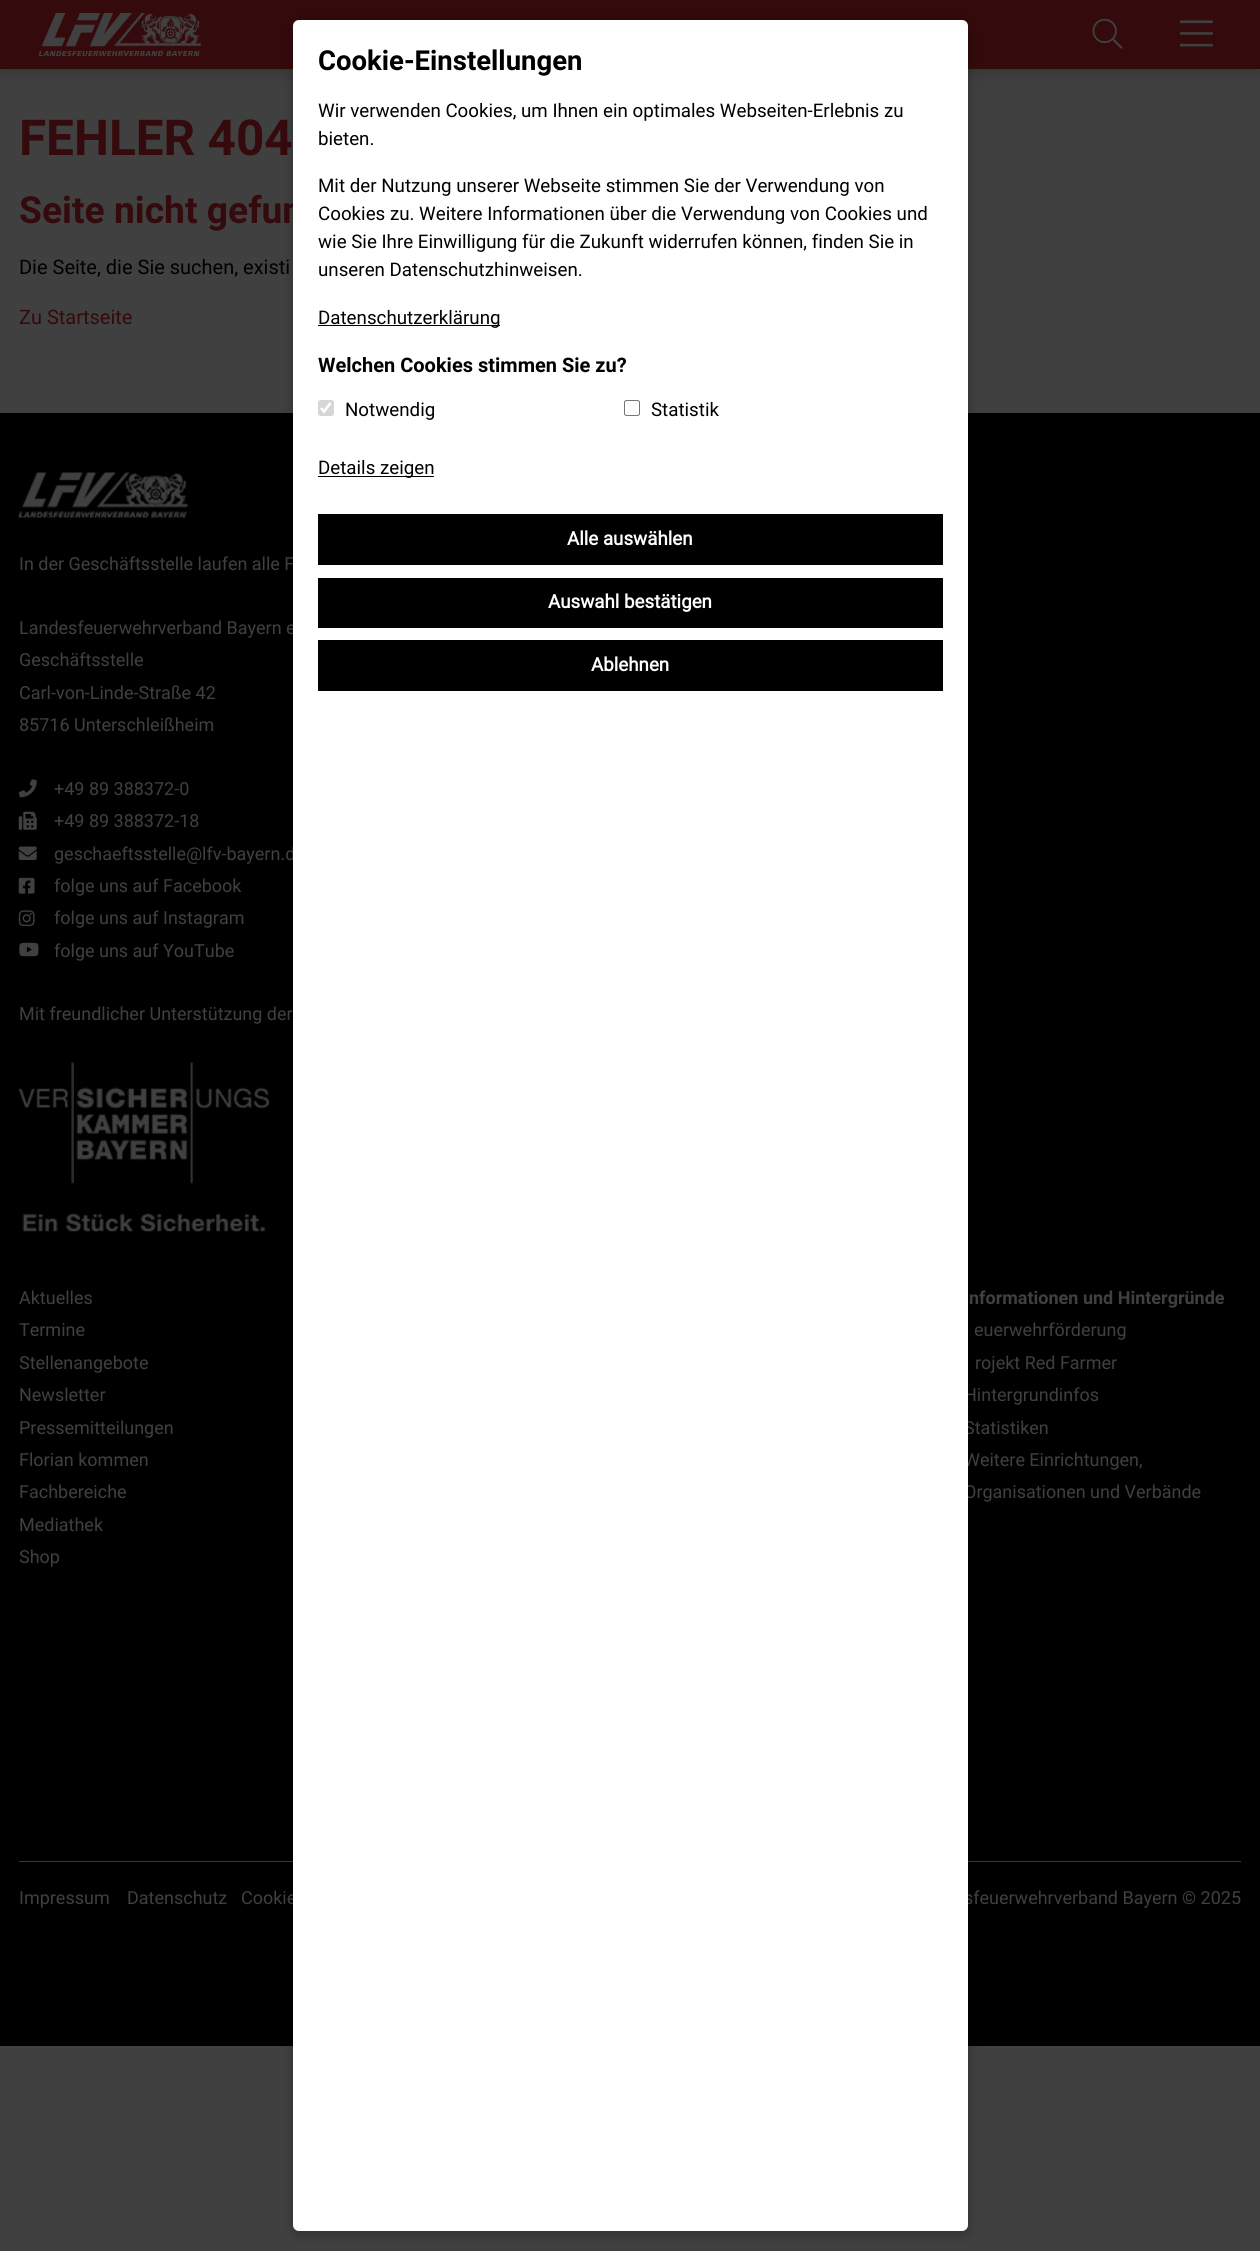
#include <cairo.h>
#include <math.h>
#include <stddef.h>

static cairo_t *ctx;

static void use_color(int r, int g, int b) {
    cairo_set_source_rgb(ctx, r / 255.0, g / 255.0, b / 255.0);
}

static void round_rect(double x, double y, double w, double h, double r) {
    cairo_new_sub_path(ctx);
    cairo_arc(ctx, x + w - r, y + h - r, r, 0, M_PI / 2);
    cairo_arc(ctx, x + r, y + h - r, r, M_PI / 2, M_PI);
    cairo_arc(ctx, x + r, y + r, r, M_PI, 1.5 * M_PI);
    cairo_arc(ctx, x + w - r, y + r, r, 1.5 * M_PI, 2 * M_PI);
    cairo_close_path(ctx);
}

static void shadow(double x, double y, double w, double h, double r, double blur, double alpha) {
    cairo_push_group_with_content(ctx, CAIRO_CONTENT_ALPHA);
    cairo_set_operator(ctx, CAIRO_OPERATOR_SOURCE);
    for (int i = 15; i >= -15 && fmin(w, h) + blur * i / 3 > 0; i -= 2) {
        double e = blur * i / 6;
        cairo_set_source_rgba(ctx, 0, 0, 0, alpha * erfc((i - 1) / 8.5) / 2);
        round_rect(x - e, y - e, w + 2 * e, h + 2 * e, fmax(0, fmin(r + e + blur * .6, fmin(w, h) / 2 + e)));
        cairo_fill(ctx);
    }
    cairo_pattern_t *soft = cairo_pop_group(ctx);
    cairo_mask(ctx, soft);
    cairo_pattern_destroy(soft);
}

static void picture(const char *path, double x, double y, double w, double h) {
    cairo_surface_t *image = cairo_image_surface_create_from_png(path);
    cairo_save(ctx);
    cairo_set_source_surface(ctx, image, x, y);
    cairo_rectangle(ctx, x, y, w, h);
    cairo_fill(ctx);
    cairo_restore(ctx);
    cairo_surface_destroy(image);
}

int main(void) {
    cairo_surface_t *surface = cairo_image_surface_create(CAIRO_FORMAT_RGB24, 1260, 2251);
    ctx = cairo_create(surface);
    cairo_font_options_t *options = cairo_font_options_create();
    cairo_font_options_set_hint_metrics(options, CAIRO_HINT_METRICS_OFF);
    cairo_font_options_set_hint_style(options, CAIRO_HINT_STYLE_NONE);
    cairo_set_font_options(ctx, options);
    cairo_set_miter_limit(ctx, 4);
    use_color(64, 64, 64);
    cairo_paint(ctx);
    use_color(0, 0, 0);
    shadow(0, 0, 1260, 69, 0, 9.5, 0.25);
    use_color(52, 10, 12);
    cairo_rectangle(ctx, 0, 0, 1260, 69);
    cairo_fill(ctx);
    picture("img1.png", 39, 13, 162, 43);
    picture("img2.png", 1092, 18, 31, 31);
    picture("img3.png", 1180, 20, 33, 27);
    cairo_select_font_face(ctx, "Roboto", CAIRO_FONT_SLANT_NORMAL, CAIRO_FONT_WEIGHT_BOLD);
    cairo_set_font_size(ctx, 49.5);
    cairo_move_to(ctx, 19, 155);
    cairo_show_text(ctx, "FEHLER 404");
    cairo_set_font_size(ctx, 37.25);
    cairo_move_to(ctx, 19, 223);
    cairo_show_text(ctx, "Seite nicht gefun");
    cairo_select_font_face(ctx, "Roboto", CAIRO_FONT_SLANT_NORMAL, CAIRO_FONT_WEIGHT_NORMAL);
    cairo_set_font_size(ctx, 20);
    use_color(0, 0, 0);
    cairo_move_to(ctx, 19, 274);
    cairo_show_text(ctx, "Die Seite, die Sie suchen, existi");
    use_color(52, 10, 12);
    cairo_move_to(ctx, 19, 324);
    cairo_show_text(ctx, "Zu Startseite");
    use_color(0, 0, 0);
    cairo_rectangle(ctx, 0, 413, 1260, 1633);
    cairo_fill(ctx);
    use_color(58, 58, 58);
    cairo_rectangle(ctx, 19, 1861, 1222, 1);
    cairo_fill(ctx);
    use_color(0, 0, 0);
    shadow(293, 23, 675, 2211, 6, 6, 0.25);
    cairo_set_font_size(ctx, 18);
    use_color(64, 64, 64);
    cairo_move_to(ctx, 19, 570);
    cairo_show_text(ctx, "In der Geschäftsstelle laufen alle F");
    cairo_move_to(ctx, 19, 634);
    cairo_show_text(ctx, "Landesfeuerwehrverband Bayern e");
    cairo_move_to(ctx, 54, 860);
    cairo_show_text(ctx, "geschaeftsstelle@lfv-bayern.d");
    cairo_move_to(ctx, 964, 1401);
    cairo_show_text(ctx, "Hintergrundinfos");
    cairo_move_to(ctx, 964, 1434);
    cairo_show_text(ctx, "Statistiken");
    cairo_move_to(ctx, 964, 1466);
    cairo_show_text(ctx, "Weitere Einrichtungen,");
    cairo_move_to(ctx, 964, 1498);
    cairo_show_text(ctx, "Organisationen und Verbände");
    cairo_move_to(ctx, 241, 1904);
    cairo_show_text(ctx, "Cookie");
    cairo_move_to(ctx, 964, 1904);
    cairo_show_text(ctx, "sfeuerwehrverband Bayern © 2025");
    use_color(255, 255, 255);
    round_rect(293, 20, 675, 2211, 6);
    cairo_fill(ctx);
    cairo_select_font_face(ctx, "Roboto", CAIRO_FONT_SLANT_NORMAL, CAIRO_FONT_WEIGHT_BOLD);
    cairo_set_font_size(ctx, 27.5);
    use_color(0, 0, 0);
    cairo_move_to(ctx, 318, 70);
    cairo_show_text(ctx, "Cookie-Einstellungen");
    cairo_select_font_face(ctx, "Roboto", CAIRO_FONT_SLANT_NORMAL, CAIRO_FONT_WEIGHT_NORMAL);
    cairo_set_font_size(ctx, 18.75);
    cairo_move_to(ctx, 318, 117);
    cairo_show_text(ctx, "Wir verwenden Cookies, um Ihnen ein optimales Webseiten-Erlebnis zu");
    cairo_move_to(ctx, 318, 145);
    cairo_show_text(ctx, "bieten.");
    cairo_move_to(ctx, 318, 192);
    cairo_show_text(ctx, "Mit der Nutzung unserer Webseite stimmen Sie der Verwendung von");
    cairo_move_to(ctx, 318, 220);
    cairo_show_text(ctx, "Cookies zu. Weitere Informationen über die Verwendung von Cookies und");
    cairo_move_to(ctx, 318, 248);
    cairo_show_text(ctx, "wie Sie Ihre Einwilligung für die Zukunft widerrufen können, finden Sie in");
    cairo_move_to(ctx, 318, 276);
    cairo_show_text(ctx, "unseren Datenschutzhinweisen.");
    cairo_rectangle(ctx, 318, 325, 182, 1);
    cairo_fill(ctx);
    cairo_move_to(ctx, 318, 324);
    cairo_show_text(ctx, "Datenschutzerklärung");
    cairo_select_font_face(ctx, "Roboto", CAIRO_FONT_SLANT_NORMAL, CAIRO_FONT_WEIGHT_BOLD);
    cairo_set_font_size(ctx, 20);
    cairo_move_to(ctx, 318, 372);
    cairo_show_text(ctx, "Welchen Cookies stimmen Sie zu?");
    use_color(214, 214, 214);
    round_rect(318, 400, 16, 16, 2.5);
    cairo_fill(ctx);
    cairo_new_path(ctx);
    cairo_move_to(ctx, 321, 408);
    cairo_line_to(ctx, 324, 411.5);
    cairo_line_to(ctx, 330.5, 403);
    use_color(255, 255, 255);
    cairo_set_line_width(ctx, 2.6);
    cairo_stroke(ctx);
    cairo_select_font_face(ctx, "Roboto", CAIRO_FONT_SLANT_NORMAL, CAIRO_FONT_WEIGHT_NORMAL);
    cairo_set_font_size(ctx, 18.75);
    use_color(0, 0, 0);
    cairo_move_to(ctx, 345, 416);
    cairo_show_text(ctx, "Notwendig");
    round_rect(624.5, 400.5, 15, 15, 2);
    use_color(118, 118, 118);
    cairo_set_line_width(ctx, 1);
    cairo_stroke(ctx);
    use_color(0, 0, 0);
    cairo_move_to(ctx, 651, 416);
    cairo_show_text(ctx, "Statistik");
    cairo_rectangle(ctx, 318, 476, 116, 1);
    cairo_fill(ctx);
    cairo_move_to(ctx, 318, 474);
    cairo_show_text(ctx, "Details zeigen");
    cairo_rectangle(ctx, 318, 514, 625, 51);
    cairo_fill(ctx);
    cairo_select_font_face(ctx, "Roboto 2", CAIRO_FONT_SLANT_NORMAL, CAIRO_FONT_WEIGHT_BOLD);
    use_color(255, 255, 255);
    cairo_move_to(ctx, 567, 545);
    cairo_show_text(ctx, "Alle auswählen");
    use_color(0, 0, 0);
    cairo_rectangle(ctx, 318, 578, 625, 50);
    cairo_fill(ctx);
    use_color(255, 255, 255);
    cairo_move_to(ctx, 548, 608);
    cairo_show_text(ctx, "Auswahl bestätigen");
    use_color(0, 0, 0);
    cairo_rectangle(ctx, 318, 640, 625, 51);
    cairo_fill(ctx);
    use_color(255, 255, 255);
    cairo_move_to(ctx, 591, 671);
    cairo_show_text(ctx, "Ablehnen");
    picture("img4.png", 18, 472, 170, 46);
    cairo_select_font_face(ctx, "Roboto", CAIRO_FONT_SLANT_NORMAL, CAIRO_FONT_WEIGHT_NORMAL);
    cairo_set_font_size(ctx, 18);
    use_color(64, 64, 64);
    cairo_move_to(ctx, 19, 666);
    cairo_show_text(ctx, "Geschäftsstelle");
    cairo_move_to(ctx, 19, 699);
    cairo_show_text(ctx, "Carl-von-Linde-Straße 42");
    cairo_move_to(ctx, 19, 731);
    cairo_show_text(ctx, "85716 Unterschleißheim");
    picture("img5.png", 18, 779, 19, 19);
    cairo_move_to(ctx, 54, 795);
    cairo_show_text(ctx, "+49 89 388372-0");
    picture("img6.png", 18, 811, 19, 19);
    cairo_move_to(ctx, 54, 827);
    cairo_show_text(ctx, "+49 89 388372-18");
    picture("img7.png", 18, 846, 19, 14);
    picture("img8.png", 18, 877, 17, 17);
    cairo_move_to(ctx, 54, 892);
    cairo_show_text(ctx, "folge uns auf Facebook");
    picture("img9.png", 18, 910, 17, 17);
    cairo_move_to(ctx, 54, 924);
    cairo_show_text(ctx, "folge uns auf Instagram");
    picture("img10.png", 19, 942, 20, 15);
    cairo_move_to(ctx, 54, 957);
    cairo_show_text(ctx, "folge uns auf YouTube");
    cairo_move_to(ctx, 19, 1020);
    cairo_show_text(ctx, "Mit freundlicher Unterstützung der");
    picture("img11.png", 18, 1062, 251, 170);
    cairo_move_to(ctx, 19, 1304);
    cairo_show_text(ctx, "Aktuelles");
    cairo_move_to(ctx, 19, 1336);
    cairo_show_text(ctx, "Termine");
    cairo_move_to(ctx, 19, 1369);
    cairo_show_text(ctx, "Stellenangebote");
    cairo_move_to(ctx, 19, 1401);
    cairo_show_text(ctx, "Newsletter");
    cairo_move_to(ctx, 19, 1434);
    cairo_show_text(ctx, "Pressemitteilungen");
    cairo_move_to(ctx, 19, 1466);
    cairo_show_text(ctx, "Florian kommen");
    cairo_move_to(ctx, 19, 1498);
    cairo_show_text(ctx, "Fachbereiche");
    cairo_move_to(ctx, 19, 1531);
    cairo_show_text(ctx, "Mediathek");
    cairo_move_to(ctx, 19, 1563);
    cairo_show_text(ctx, "Shop");
    cairo_select_font_face(ctx, "Roboto", CAIRO_FONT_SLANT_NORMAL, CAIRO_FONT_WEIGHT_BOLD);
    cairo_move_to(ctx, 969, 1304);
    cairo_show_text(ctx, "nformationen und Hintergründe");
    cairo_select_font_face(ctx, "Roboto", CAIRO_FONT_SLANT_NORMAL, CAIRO_FONT_WEIGHT_NORMAL);
    cairo_move_to(ctx, 974, 1336);
    cairo_show_text(ctx, "euerwehrförderung");
    cairo_move_to(ctx, 975, 1369);
    cairo_show_text(ctx, "rojekt Red Farmer");
    cairo_move_to(ctx, 19, 1904);
    cairo_show_text(ctx, "Impressum");
    cairo_move_to(ctx, 127, 1904);
    cairo_show_text(ctx, "Datenschutz");
    cairo_surface_write_to_png(surface, "result.png");
    cairo_font_options_destroy(options);
    cairo_destroy(ctx);
    cairo_surface_destroy(surface);
    return 0;
}
